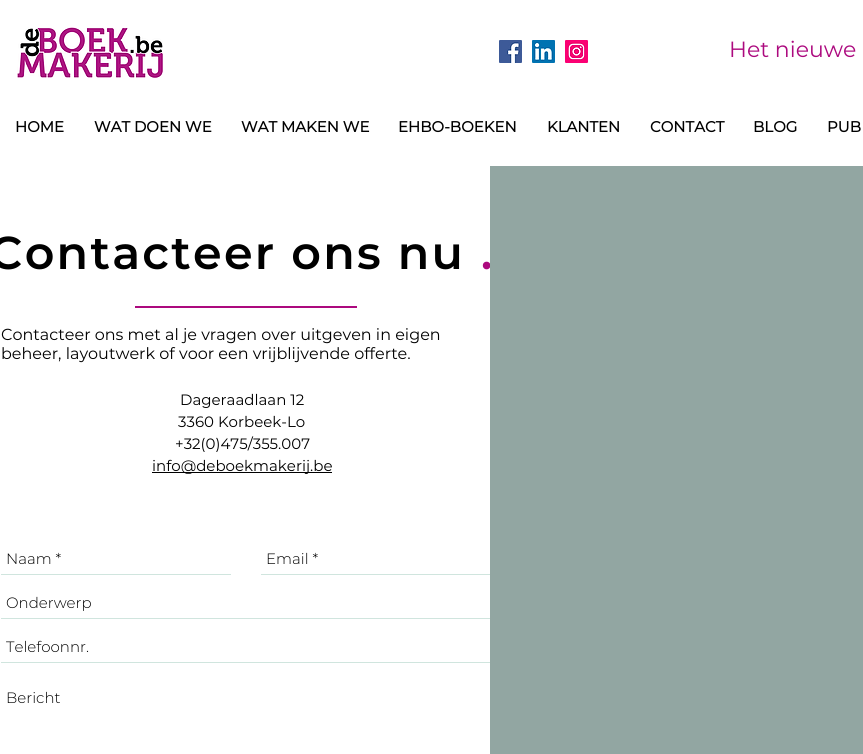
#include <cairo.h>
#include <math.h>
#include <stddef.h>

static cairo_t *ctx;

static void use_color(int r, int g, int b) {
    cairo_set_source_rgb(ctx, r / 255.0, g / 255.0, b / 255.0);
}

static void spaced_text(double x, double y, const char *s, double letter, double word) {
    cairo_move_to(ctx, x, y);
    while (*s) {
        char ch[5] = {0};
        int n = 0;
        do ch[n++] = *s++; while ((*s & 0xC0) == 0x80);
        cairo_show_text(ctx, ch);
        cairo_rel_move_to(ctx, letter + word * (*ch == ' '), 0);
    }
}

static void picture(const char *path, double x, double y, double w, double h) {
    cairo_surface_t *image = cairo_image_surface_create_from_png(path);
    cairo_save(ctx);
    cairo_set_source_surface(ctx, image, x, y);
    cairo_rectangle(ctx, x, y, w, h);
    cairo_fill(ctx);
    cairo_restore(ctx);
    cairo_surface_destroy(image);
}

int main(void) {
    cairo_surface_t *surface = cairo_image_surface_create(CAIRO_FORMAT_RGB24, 863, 754);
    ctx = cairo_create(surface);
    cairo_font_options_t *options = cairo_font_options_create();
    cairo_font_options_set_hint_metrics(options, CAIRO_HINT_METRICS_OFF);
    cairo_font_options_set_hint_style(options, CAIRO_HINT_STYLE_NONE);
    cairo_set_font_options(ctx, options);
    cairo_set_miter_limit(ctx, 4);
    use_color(255, 255, 255);
    cairo_paint(ctx);
    picture("img1.png", 17, 27, 146, 51);
    picture("img2.png", 499, 40, 23, 23);
    picture("img3.png", 532, 40, 23, 23);
    picture("img4.png", 565, 40, 23, 23);
    cairo_select_font_face(ctx, "Montserrat", CAIRO_FONT_SLANT_NORMAL, CAIRO_FONT_WEIGHT_NORMAL);
    cairo_set_font_size(ctx, 22);
    use_color(172, 9, 126);
    cairo_move_to(ctx, 729, 57);
    cairo_show_text(ctx, "Het nieuwe");
    cairo_select_font_face(ctx, "Montserrat", CAIRO_FONT_SLANT_NORMAL, CAIRO_FONT_WEIGHT_BOLD);
    cairo_set_font_size(ctx, 15);
    use_color(0, 0, 0);
    cairo_move_to(ctx, 15, 132);
    cairo_show_text(ctx, "HOME");
    cairo_move_to(ctx, 94, 132);
    cairo_show_text(ctx, "WAT DOEN WE");
    cairo_move_to(ctx, 241, 132);
    cairo_show_text(ctx, "WAT MAKEN WE");
    cairo_move_to(ctx, 398, 132);
    cairo_show_text(ctx, "EHBO-BOEKEN");
    cairo_move_to(ctx, 547, 132);
    cairo_show_text(ctx, "KLANTEN");
    cairo_move_to(ctx, 650, 132);
    cairo_show_text(ctx, "CONTACT");
    cairo_move_to(ctx, 753, 132);
    cairo_show_text(ctx, "BLOG");
    cairo_move_to(ctx, 827, 132);
    cairo_show_text(ctx, "PUB");
    cairo_select_font_face(ctx, "Montserrat SemiBold", CAIRO_FONT_SLANT_NORMAL, CAIRO_FONT_WEIGHT_NORMAL);
    cairo_set_font_size(ctx, 46);
    spaced_text(-11, 269, "Contacteer ons nu", 2.25, 0);
    use_color(172, 9, 126);
    spaced_text(481, 269, ".", 2.25, 0);
    cairo_rectangle(ctx, 135, 306, 222, 2);
    cairo_fill(ctx);
    cairo_select_font_face(ctx, "Montserrat", CAIRO_FONT_SLANT_NORMAL, CAIRO_FONT_WEIGHT_NORMAL);
    cairo_set_font_size(ctx, 16);
    use_color(0, 0, 0);
    cairo_move_to(ctx, 1, 340);
    cairo_show_text(ctx, "Contacteer ons met al je vragen over uitgeven in eigen");
    cairo_move_to(ctx, 1, 359);
    cairo_show_text(ctx, "beheer, layoutwerk of voor een vrijblijvende offerte.");
    cairo_set_font_size(ctx, 15);
    cairo_move_to(ctx, 180, 405);
    cairo_show_text(ctx, "Dageraadlaan 12");
    cairo_move_to(ctx, 178, 427);
    cairo_show_text(ctx, "3360 Korbeek-Lo");
    cairo_move_to(ctx, 175, 449);
    cairo_show_text(ctx, "+32(0)475/355.007");
    cairo_rectangle(ctx, 152, 472, 180, 1);
    cairo_fill(ctx);
    cairo_move_to(ctx, 152, 471);
    cairo_show_text(ctx, "info@deboekmakerij.be");
    use_color(208, 229, 222);
    cairo_rectangle(ctx, 1, 574, 230, 1);
    cairo_fill(ctx);
    cairo_select_font_face(ctx, "Montserrat Light", CAIRO_FONT_SLANT_NORMAL, CAIRO_FONT_WEIGHT_NORMAL);
    use_color(0, 0, 0);
    cairo_move_to(ctx, 6, 564);
    cairo_show_text(ctx, "Naam *");
    use_color(208, 229, 222);
    cairo_rectangle(ctx, 261, 574, 229, 1);
    cairo_fill(ctx);
    use_color(0, 0, 0);
    cairo_move_to(ctx, 266, 564);
    cairo_show_text(ctx, "Email *");
    use_color(208, 229, 222);
    cairo_rectangle(ctx, 1, 618, 489, 1);
    cairo_fill(ctx);
    use_color(0, 0, 0);
    cairo_move_to(ctx, 6, 608);
    cairo_show_text(ctx, "Onderwerp");
    use_color(208, 229, 222);
    cairo_rectangle(ctx, 1, 662, 489, 1);
    cairo_fill(ctx);
    use_color(0, 0, 0);
    cairo_move_to(ctx, 6, 652);
    cairo_show_text(ctx, "Telefoonnr.");
    cairo_move_to(ctx, 6, 703);
    cairo_show_text(ctx, "Bericht");
    use_color(146, 166, 162);
    cairo_rectangle(ctx, 490, 166, 373, 588);
    cairo_fill(ctx);
    cairo_surface_write_to_png(surface, "result.png");
    cairo_font_options_destroy(options);
    cairo_destroy(ctx);
    cairo_surface_destroy(surface);
    return 0;
}
